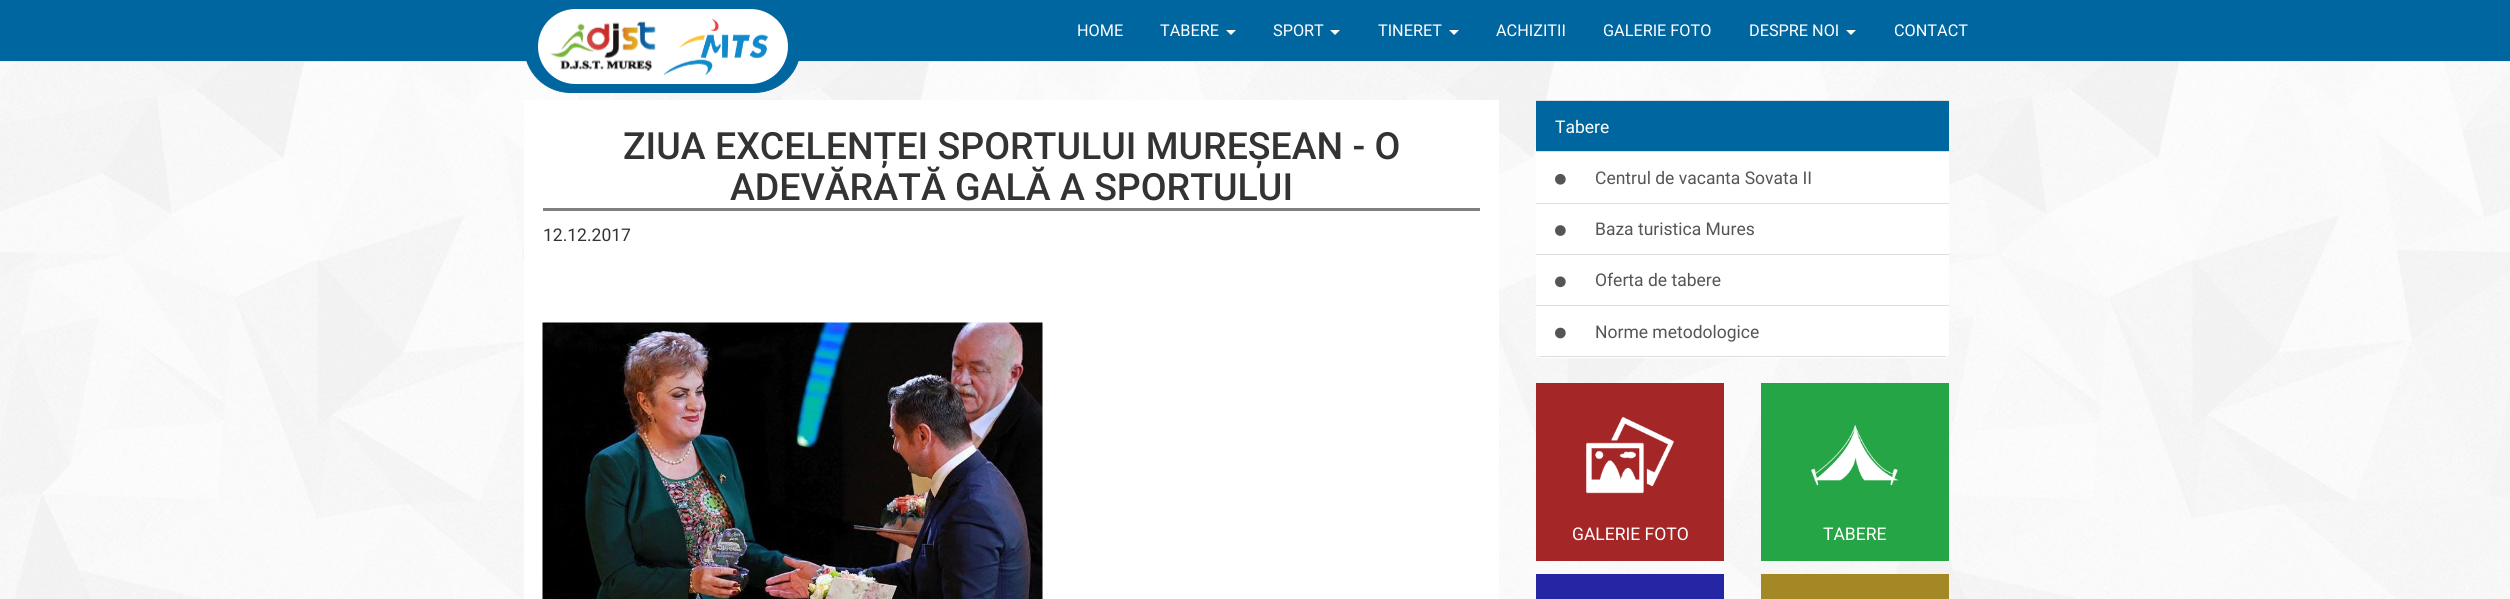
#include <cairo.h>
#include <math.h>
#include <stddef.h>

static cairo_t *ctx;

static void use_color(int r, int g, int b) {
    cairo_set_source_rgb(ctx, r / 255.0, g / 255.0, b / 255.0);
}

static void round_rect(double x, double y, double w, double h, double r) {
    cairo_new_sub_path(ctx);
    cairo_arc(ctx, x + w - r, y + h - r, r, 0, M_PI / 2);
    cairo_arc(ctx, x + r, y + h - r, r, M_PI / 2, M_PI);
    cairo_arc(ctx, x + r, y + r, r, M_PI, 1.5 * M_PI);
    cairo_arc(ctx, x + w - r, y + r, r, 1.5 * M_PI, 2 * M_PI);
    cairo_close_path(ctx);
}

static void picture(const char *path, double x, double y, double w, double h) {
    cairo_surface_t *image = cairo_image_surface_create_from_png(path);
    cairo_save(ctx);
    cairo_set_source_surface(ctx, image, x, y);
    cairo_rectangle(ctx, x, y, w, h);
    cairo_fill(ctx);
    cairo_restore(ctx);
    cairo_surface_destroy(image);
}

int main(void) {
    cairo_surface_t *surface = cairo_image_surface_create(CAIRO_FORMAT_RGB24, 2510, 599);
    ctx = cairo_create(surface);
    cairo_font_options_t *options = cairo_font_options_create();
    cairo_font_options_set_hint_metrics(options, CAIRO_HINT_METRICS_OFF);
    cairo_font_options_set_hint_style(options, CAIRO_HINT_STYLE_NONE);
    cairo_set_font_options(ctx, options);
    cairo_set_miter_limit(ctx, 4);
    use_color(255, 255, 255);
    cairo_paint(ctx);
    picture("img1.png", 0, 62, 2510, 537);
    use_color(0, 102, 160);
    cairo_rectangle(ctx, 0, 0, 2510, 61);
    cairo_fill(ctx);
    use_color(231, 231, 231);
    cairo_rectangle(ctx, 0, 61, 2510, 1);
    cairo_fill(ctx);
    use_color(0, 102, 160);
    round_rect(524.5, 0.5, 276, 92, 46);
    cairo_fill_preserve(ctx);
    cairo_set_line_width(ctx, 1);
    cairo_stroke(ctx);
    use_color(255, 255, 255);
    round_rect(538, 9, 250, 75, 37.5);
    cairo_fill(ctx);
    picture("img2.png", 550, 21, 106, 50);
    picture("img3.png", 663, 18, 105, 58);
    cairo_select_font_face(ctx, "Roboto", CAIRO_FONT_SLANT_NORMAL, CAIRO_FONT_WEIGHT_NORMAL);
    cairo_set_font_size(ctx, 16.25);
    cairo_move_to(ctx, 1077, 36);
    cairo_show_text(ctx, "HOME");
    cairo_move_to(ctx, 1160, 36);
    cairo_show_text(ctx, "TABERE");
    cairo_new_path(ctx);
    cairo_move_to(ctx, 1226, 30);
    cairo_line_to(ctx, 1236, 30);
    cairo_line_to(ctx, 1231, 35);
    cairo_close_path(ctx);
    cairo_fill(ctx);
    cairo_move_to(ctx, 1273, 36);
    cairo_show_text(ctx, "SPORT");
    cairo_new_path(ctx);
    cairo_move_to(ctx, 1330, 30);
    cairo_line_to(ctx, 1340, 30);
    cairo_line_to(ctx, 1335, 35);
    cairo_close_path(ctx);
    cairo_fill(ctx);
    cairo_move_to(ctx, 1378, 36);
    cairo_show_text(ctx, "TINERET");
    cairo_new_path(ctx);
    cairo_move_to(ctx, 1449, 30);
    cairo_line_to(ctx, 1459, 30);
    cairo_line_to(ctx, 1454, 35);
    cairo_close_path(ctx);
    cairo_fill(ctx);
    cairo_move_to(ctx, 1496, 36);
    cairo_show_text(ctx, "ACHIZITII");
    cairo_move_to(ctx, 1603, 36);
    cairo_show_text(ctx, "GALERIE FOTO");
    cairo_move_to(ctx, 1749, 36);
    cairo_show_text(ctx, "DESPRE NOI");
    cairo_new_path(ctx);
    cairo_move_to(ctx, 1846, 30);
    cairo_line_to(ctx, 1856, 30);
    cairo_line_to(ctx, 1851, 35);
    cairo_close_path(ctx);
    cairo_fill(ctx);
    cairo_move_to(ctx, 1894, 36);
    cairo_show_text(ctx, "CONTACT");
    cairo_rectangle(ctx, 524, 100, 975, 499);
    cairo_fill(ctx);
    use_color(128, 128, 128);
    cairo_rectangle(ctx, 543, 208, 937, 3);
    cairo_fill(ctx);
    cairo_select_font_face(ctx, "Roboto Medium", CAIRO_FONT_SLANT_NORMAL, CAIRO_FONT_WEIGHT_NORMAL);
    cairo_set_font_size(ctx, 37.5);
    use_color(51, 51, 51);
    cairo_move_to(ctx, 623, 159);
    cairo_show_text(ctx, "ZIUA EXCELENȚEI SPORTULUI MUREȘEAN - O");
    cairo_move_to(ctx, 730, 200);
    cairo_show_text(ctx, "ADEVĂRATĂ GALĂ A SPORTULUI");
    cairo_select_font_face(ctx, "Roboto", CAIRO_FONT_SLANT_NORMAL, CAIRO_FONT_WEIGHT_NORMAL);
    cairo_set_font_size(ctx, 17.5);
    cairo_move_to(ctx, 543, 241);
    cairo_show_text(ctx, "12.12.2017");
    picture("img4.png", 542, 322, 501, 277);
    use_color(0, 102, 160);
    cairo_rectangle(ctx, 1536, 101, 413, 50);
    cairo_fill(ctx);
    use_color(221, 221, 221);
    cairo_rectangle(ctx, 1536, 100, 413, 1);
    cairo_fill(ctx);
    use_color(255, 255, 255);
    cairo_move_to(ctx, 1555, 133);
    cairo_show_text(ctx, "Tabere");
    cairo_rectangle(ctx, 1536, 152, 413, 51);
    cairo_fill(ctx);
    use_color(221, 221, 221);
    cairo_rectangle(ctx, 1536, 151, 413, 1);
    cairo_fill(ctx);
    picture("img5.png", 1555, 173, 11, 12);
    use_color(85, 85, 85);
    cairo_move_to(ctx, 1595, 184);
    cairo_show_text(ctx, "Centrul de vacanta Sovata II");
    use_color(255, 255, 255);
    cairo_rectangle(ctx, 1536, 204, 413, 50);
    cairo_fill(ctx);
    use_color(221, 221, 221);
    cairo_rectangle(ctx, 1536, 203, 413, 1);
    cairo_fill(ctx);
    picture("img6.png", 1555, 225, 11, 11);
    use_color(85, 85, 85);
    cairo_move_to(ctx, 1595, 235);
    cairo_show_text(ctx, "Baza turistica Mures");
    use_color(255, 255, 255);
    cairo_rectangle(ctx, 1536, 255, 413, 50);
    cairo_fill(ctx);
    use_color(221, 221, 221);
    cairo_rectangle(ctx, 1536, 254, 413, 1);
    cairo_fill(ctx);
    picture("img7.png", 1555, 276, 11, 12);
    use_color(85, 85, 85);
    cairo_move_to(ctx, 1595, 286);
    cairo_show_text(ctx, "Oferta de tabere");
    use_color(255, 255, 255);
    cairo_new_path(ctx);
    cairo_move_to(ctx, 1536, 305);
    cairo_line_to(ctx, 1949, 305);
    cairo_line_to(ctx, 1949, 353);
    cairo_curve_to(ctx, 1949, 356, 1947, 358, 1944, 358);
    cairo_line_to(ctx, 1541, 358);
    cairo_curve_to(ctx, 1538, 358, 1536, 356, 1536, 353);
    cairo_close_path(ctx);
    cairo_fill(ctx);
    use_color(221, 221, 221);
    cairo_rectangle(ctx, 1536, 305, 413, 1);
    cairo_fill(ctx);
    cairo_rectangle(ctx, 1539, 356, 407, 1);
    cairo_fill(ctx);
    picture("img8.png", 1555, 327, 11, 12);
    use_color(85, 85, 85);
    cairo_move_to(ctx, 1595, 338);
    cairo_show_text(ctx, "Norme metodologice");
    use_color(165, 38, 38);
    cairo_rectangle(ctx, 1536, 383, 188, 178);
    cairo_fill(ctx);
    picture("img9.png", 1586, 416, 88, 78);
    use_color(255, 255, 255);
    cairo_move_to(ctx, 1572, 540);
    cairo_show_text(ctx, "GALERIE FOTO");
    use_color(38, 165, 70);
    cairo_rectangle(ctx, 1761, 383, 188, 178);
    cairo_fill(ctx);
    picture("img10.png", 1811, 424, 88, 62);
    use_color(255, 255, 255);
    cairo_move_to(ctx, 1823, 540);
    cairo_show_text(ctx, "TABERE");
    use_color(38, 38, 165);
    cairo_rectangle(ctx, 1536, 574, 188, 25);
    cairo_fill(ctx);
    use_color(165, 136, 38);
    cairo_rectangle(ctx, 1761, 574, 188, 25);
    cairo_fill(ctx);
    cairo_surface_write_to_png(surface, "result.png");
    cairo_font_options_destroy(options);
    cairo_destroy(ctx);
    cairo_surface_destroy(surface);
    return 0;
}
